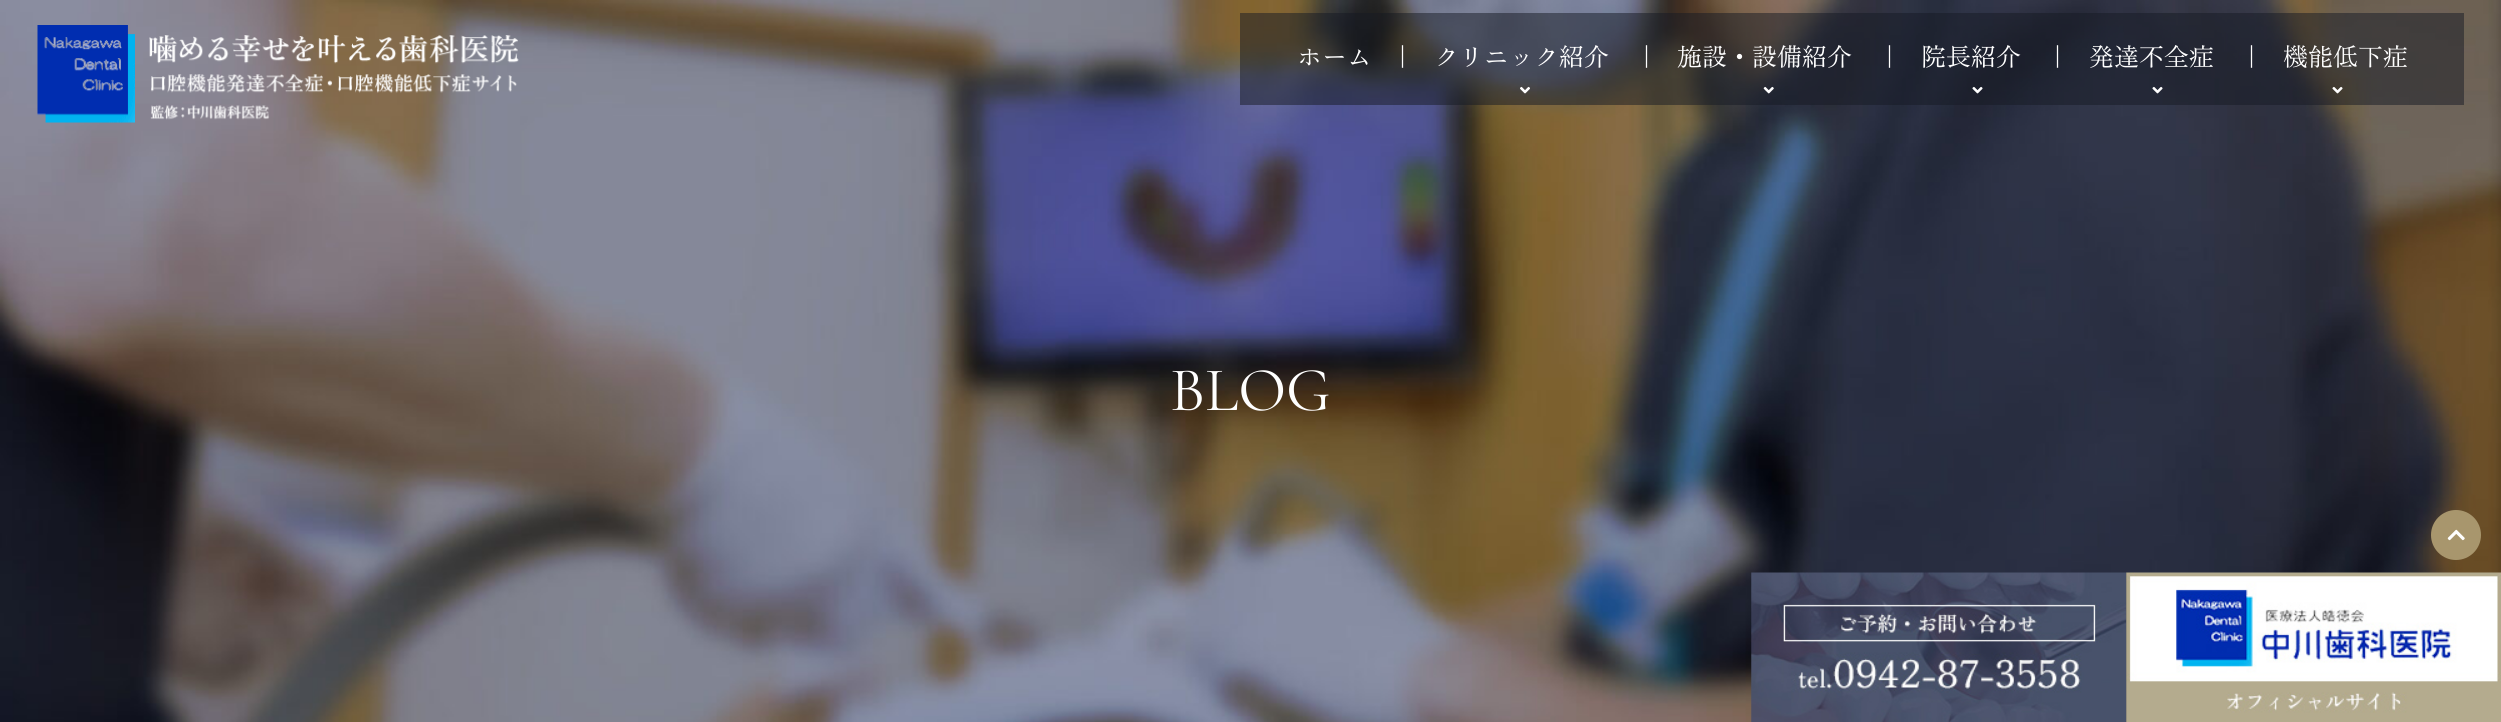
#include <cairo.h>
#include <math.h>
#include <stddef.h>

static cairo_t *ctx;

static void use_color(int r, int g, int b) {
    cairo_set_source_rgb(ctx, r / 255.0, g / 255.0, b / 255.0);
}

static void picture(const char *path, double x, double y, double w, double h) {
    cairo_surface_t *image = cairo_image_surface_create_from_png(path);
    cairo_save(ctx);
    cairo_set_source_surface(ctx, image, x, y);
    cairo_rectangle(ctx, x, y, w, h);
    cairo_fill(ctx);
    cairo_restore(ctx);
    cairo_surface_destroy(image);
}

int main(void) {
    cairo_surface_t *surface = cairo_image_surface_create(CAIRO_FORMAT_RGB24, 2501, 722);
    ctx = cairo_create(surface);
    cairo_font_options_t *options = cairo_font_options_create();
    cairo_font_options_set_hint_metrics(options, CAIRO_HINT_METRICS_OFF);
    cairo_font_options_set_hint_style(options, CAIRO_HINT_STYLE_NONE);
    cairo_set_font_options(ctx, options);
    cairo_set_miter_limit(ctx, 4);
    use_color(255, 255, 255);
    cairo_paint(ctx);
    picture("img7.png", 0, 0, 2501, 722);
    picture("img1.png", 37, 25, 482, 98);
    cairo_set_source_rgba(ctx, 0.086, 0.102, 0.145, 0.5);
    cairo_rectangle(ctx, 1240, 13, 1224, 92);
    cairo_fill(ctx);
    cairo_select_font_face(ctx, "Zen Old Mincho", CAIRO_FONT_SLANT_NORMAL, CAIRO_FONT_WEIGHT_NORMAL);
    cairo_set_font_size(ctx, 25);
    use_color(255, 255, 255);
    cairo_move_to(ctx, 1297, 66);
    cairo_show_text(ctx, "ホーム");
    cairo_move_to(ctx, 1390, 66);
    cairo_show_text(ctx, "｜");
    cairo_move_to(ctx, 1434, 66);
    cairo_show_text(ctx, "クリニック紹介");
    cairo_move_to(ctx, 1634, 66);
    cairo_show_text(ctx, "｜");
    picture("img2.png", 1520, 86, 10, 8);
    cairo_move_to(ctx, 1677, 66);
    cairo_show_text(ctx, "施設・設備紹介");
    cairo_move_to(ctx, 1877, 66);
    cairo_show_text(ctx, "｜");
    picture("img3.png", 1763, 86, 11, 8);
    cairo_move_to(ctx, 1921, 66);
    cairo_show_text(ctx, "院長紹介");
    cairo_move_to(ctx, 2045, 66);
    cairo_show_text(ctx, "｜");
    picture("img4.png", 1972, 86, 11, 8);
    cairo_move_to(ctx, 2089, 66);
    cairo_show_text(ctx, "発達不全症");
    cairo_move_to(ctx, 2239, 66);
    cairo_show_text(ctx, "｜");
    picture("img5.png", 2152, 86, 11, 8);
    cairo_move_to(ctx, 2283, 66);
    cairo_show_text(ctx, "機能低下症");
    picture("img6.png", 2332, 86, 11, 8);
    cairo_select_font_face(ctx, "Cormorant Infant", CAIRO_FONT_SLANT_NORMAL, CAIRO_FONT_WEIGHT_NORMAL);
    cairo_set_font_size(ctx, 62.5);
    cairo_move_to(ctx, 1170, 410);
    cairo_show_text(ctx, "BLOG");
    picture("img8.png", 1751, 572, 376, 150);
    picture("img9.png", 2126, 572, 375, 150);
    use_color(168, 150, 109);
    cairo_arc(ctx, 2456, 535, 25, 0, 2 * M_PI);
    cairo_fill(ctx);
    picture("img10.png", 2447, 529, 18, 12);
    cairo_surface_write_to_png(surface, "result.png");
    cairo_font_options_destroy(options);
    cairo_destroy(ctx);
    cairo_surface_destroy(surface);
    return 0;
}
